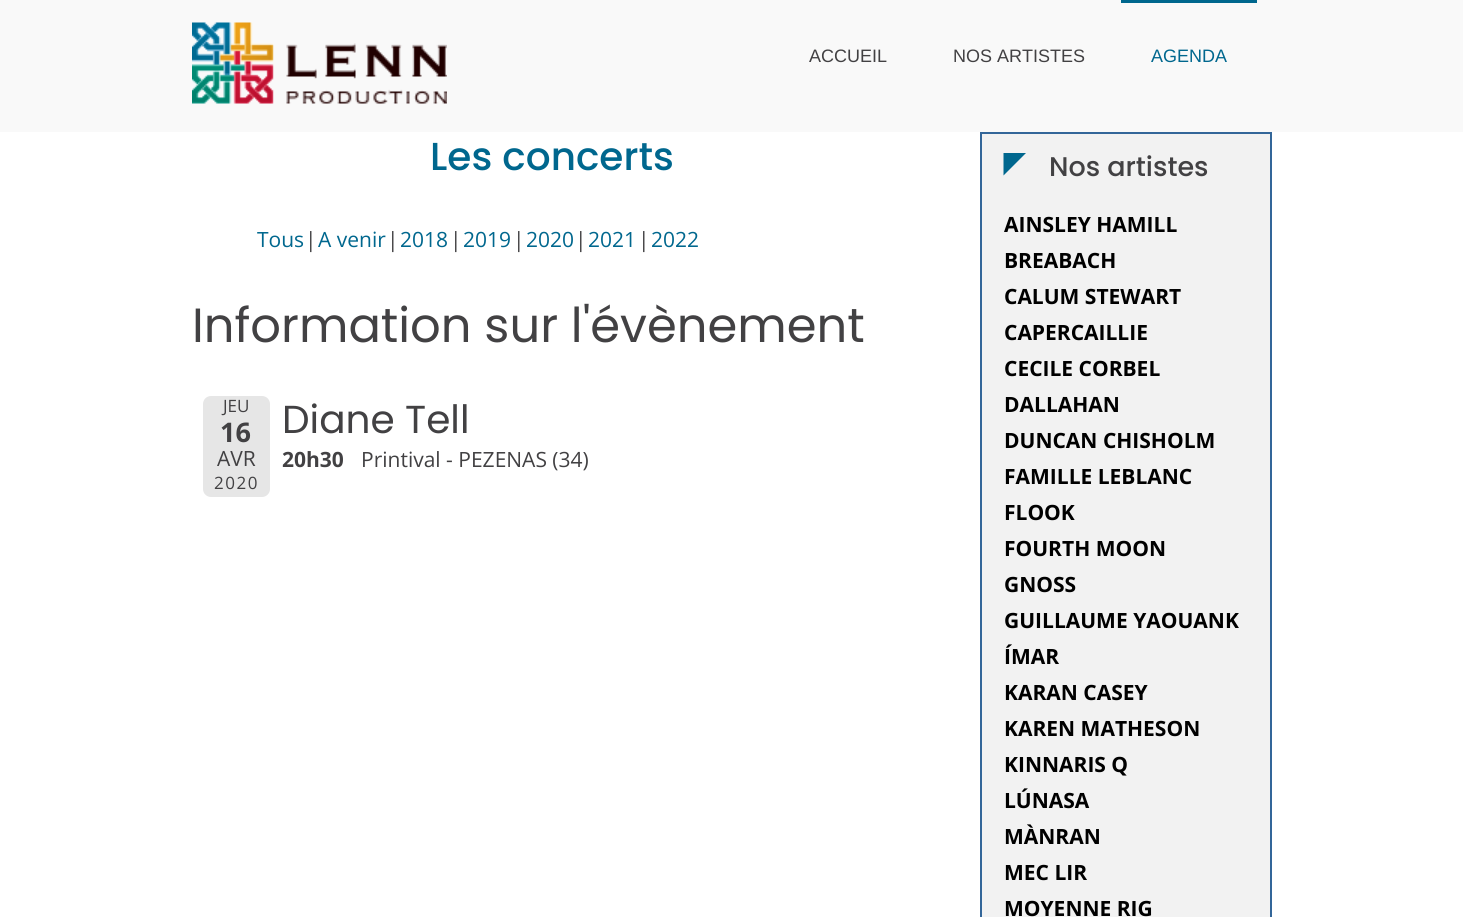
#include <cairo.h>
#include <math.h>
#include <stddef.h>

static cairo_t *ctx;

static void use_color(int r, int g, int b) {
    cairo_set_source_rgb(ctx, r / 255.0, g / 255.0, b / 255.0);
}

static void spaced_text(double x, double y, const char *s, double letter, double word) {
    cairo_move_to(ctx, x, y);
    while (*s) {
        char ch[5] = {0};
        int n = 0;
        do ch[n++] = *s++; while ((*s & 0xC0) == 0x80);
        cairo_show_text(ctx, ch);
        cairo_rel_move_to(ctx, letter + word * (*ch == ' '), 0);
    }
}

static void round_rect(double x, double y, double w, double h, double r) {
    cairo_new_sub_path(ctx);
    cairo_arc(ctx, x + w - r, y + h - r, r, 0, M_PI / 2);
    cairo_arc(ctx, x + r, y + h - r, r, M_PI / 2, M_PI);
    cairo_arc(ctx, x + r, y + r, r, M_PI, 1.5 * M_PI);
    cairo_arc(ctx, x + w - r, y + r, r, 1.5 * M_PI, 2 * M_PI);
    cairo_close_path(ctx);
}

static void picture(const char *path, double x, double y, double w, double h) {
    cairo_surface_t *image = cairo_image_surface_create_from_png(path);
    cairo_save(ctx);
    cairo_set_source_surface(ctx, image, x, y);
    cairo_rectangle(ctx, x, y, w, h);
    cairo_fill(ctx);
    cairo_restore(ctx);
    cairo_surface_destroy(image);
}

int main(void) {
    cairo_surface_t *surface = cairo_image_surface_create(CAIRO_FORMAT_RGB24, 1463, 917);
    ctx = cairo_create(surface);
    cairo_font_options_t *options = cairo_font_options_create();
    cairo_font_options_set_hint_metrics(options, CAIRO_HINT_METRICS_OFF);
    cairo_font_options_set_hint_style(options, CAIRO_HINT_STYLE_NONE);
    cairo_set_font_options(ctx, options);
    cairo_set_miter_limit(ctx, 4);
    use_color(255, 255, 255);
    cairo_paint(ctx);
    use_color(249, 249, 249);
    cairo_rectangle(ctx, 0, 0, 1463, 132);
    cairo_fill(ctx);
    picture("img1.png", 192, 22, 255, 82);
    cairo_select_font_face(ctx, "Liberation Sans", CAIRO_FONT_SLANT_NORMAL, CAIRO_FONT_WEIGHT_NORMAL);
    cairo_set_font_size(ctx, 18);
    use_color(66, 65, 67);
    cairo_move_to(ctx, 809, 62);
    cairo_show_text(ctx, "ACCUEIL");
    cairo_move_to(ctx, 953, 62);
    cairo_show_text(ctx, "NOS ARTISTES");
    use_color(0, 103, 142);
    cairo_rectangle(ctx, 1121, 0, 136, 3);
    cairo_fill(ctx);
    cairo_move_to(ctx, 1151, 62);
    cairo_show_text(ctx, "AGENDA");
    cairo_select_font_face(ctx, "Poppins Medium", CAIRO_FONT_SLANT_NORMAL, CAIRO_FONT_WEIGHT_NORMAL);
    cairo_set_font_size(ctx, 39);
    cairo_move_to(ctx, 430, 170);
    cairo_show_text(ctx, "Les concerts");
    cairo_select_font_face(ctx, "Open Sans", CAIRO_FONT_SLANT_NORMAL, CAIRO_FONT_WEIGHT_NORMAL);
    cairo_set_font_size(ctx, 21);
    cairo_move_to(ctx, 257, 247);
    cairo_show_text(ctx, "Tous");
    use_color(66, 65, 67);
    cairo_move_to(ctx, 305, 247);
    cairo_show_text(ctx, "|");
    use_color(0, 103, 142);
    cairo_move_to(ctx, 318, 247);
    cairo_show_text(ctx, "A venir");
    use_color(66, 65, 67);
    cairo_move_to(ctx, 387, 247);
    cairo_show_text(ctx, "|");
    use_color(0, 103, 142);
    cairo_move_to(ctx, 400, 247);
    cairo_show_text(ctx, "2018");
    use_color(66, 65, 67);
    cairo_move_to(ctx, 450, 247);
    cairo_show_text(ctx, "|");
    use_color(0, 103, 142);
    cairo_move_to(ctx, 463, 247);
    cairo_show_text(ctx, "2019");
    use_color(66, 65, 67);
    cairo_move_to(ctx, 513, 247);
    cairo_show_text(ctx, "|");
    use_color(0, 103, 142);
    cairo_move_to(ctx, 526, 247);
    cairo_show_text(ctx, "2020");
    use_color(66, 65, 67);
    cairo_move_to(ctx, 575, 247);
    cairo_show_text(ctx, "|");
    use_color(0, 103, 142);
    cairo_move_to(ctx, 588, 247);
    cairo_show_text(ctx, "2021");
    use_color(66, 65, 67);
    cairo_move_to(ctx, 638, 247);
    cairo_show_text(ctx, "|");
    use_color(0, 103, 142);
    cairo_move_to(ctx, 651, 247);
    cairo_show_text(ctx, "2022");
    cairo_select_font_face(ctx, "Poppins", CAIRO_FONT_SLANT_NORMAL, CAIRO_FONT_WEIGHT_NORMAL);
    cairo_set_font_size(ctx, 48);
    use_color(66, 65, 67);
    cairo_move_to(ctx, 192, 342);
    cairo_show_text(ctx, "Information sur l'évènement");
    use_color(230, 230, 230);
    round_rect(203, 396, 67, 101, 8);
    cairo_fill(ctx);
    cairo_select_font_face(ctx, "Open Sans", CAIRO_FONT_SLANT_NORMAL, CAIRO_FONT_WEIGHT_NORMAL);
    cairo_set_font_size(ctx, 17);
    use_color(66, 65, 67);
    cairo_move_to(ctx, 223, 412);
    cairo_show_text(ctx, "JEU");
    cairo_select_font_face(ctx, "Open Sans", CAIRO_FONT_SLANT_NORMAL, CAIRO_FONT_WEIGHT_BOLD);
    cairo_set_font_size(ctx, 27);
    cairo_move_to(ctx, 220, 442);
    cairo_show_text(ctx, "16");
    cairo_select_font_face(ctx, "Open Sans", CAIRO_FONT_SLANT_NORMAL, CAIRO_FONT_WEIGHT_NORMAL);
    cairo_set_font_size(ctx, 21);
    cairo_move_to(ctx, 217, 466);
    cairo_show_text(ctx, "AVR");
    cairo_set_font_size(ctx, 17);
    spaced_text(214, 489, "2020", 1.5, 0);
    cairo_select_font_face(ctx, "Poppins", CAIRO_FONT_SLANT_NORMAL, CAIRO_FONT_WEIGHT_NORMAL);
    cairo_set_font_size(ctx, 39);
    cairo_move_to(ctx, 282, 433);
    cairo_show_text(ctx, "Diane Tell");
    cairo_select_font_face(ctx, "Open Sans", CAIRO_FONT_SLANT_NORMAL, CAIRO_FONT_WEIGHT_BOLD);
    cairo_set_font_size(ctx, 21);
    cairo_move_to(ctx, 282, 467);
    cairo_show_text(ctx, "20h30");
    cairo_select_font_face(ctx, "Open Sans", CAIRO_FONT_SLANT_NORMAL, CAIRO_FONT_WEIGHT_NORMAL);
    cairo_move_to(ctx, 361, 467);
    cairo_show_text(ctx, "Printival - PEZENAS (34)");
    use_color(242, 242, 242);
    cairo_rectangle(ctx, 981, 133, 290, 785);
    cairo_fill_preserve(ctx);
    use_color(51, 102, 153);
    cairo_stroke(ctx);
    use_color(0, 103, 142);
    cairo_new_path(ctx);
    cairo_move_to(ctx, 1003.5, 153);
    cairo_line_to(ctx, 1026, 153);
    cairo_line_to(ctx, 1003.5, 175.5);
    cairo_close_path(ctx);
    cairo_fill(ctx);
    cairo_select_font_face(ctx, "Poppins Medium", CAIRO_FONT_SLANT_NORMAL, CAIRO_FONT_WEIGHT_NORMAL);
    cairo_set_font_size(ctx, 27);
    use_color(66, 65, 67);
    cairo_move_to(ctx, 1049, 176);
    cairo_show_text(ctx, "Nos artistes");
    cairo_select_font_face(ctx, "Open Sans", CAIRO_FONT_SLANT_NORMAL, CAIRO_FONT_WEIGHT_BOLD);
    cairo_set_font_size(ctx, 21);
    use_color(0, 0, 0);
    cairo_move_to(ctx, 1004, 232);
    cairo_show_text(ctx, "AINSLEY HAMILL");
    cairo_move_to(ctx, 1004, 268);
    cairo_show_text(ctx, "BREABACH");
    cairo_move_to(ctx, 1004, 304);
    cairo_show_text(ctx, "CALUM STEWART");
    cairo_move_to(ctx, 1004, 340);
    cairo_show_text(ctx, "CAPERCAILLIE");
    cairo_move_to(ctx, 1004, 376);
    cairo_show_text(ctx, "CECILE CORBEL");
    cairo_move_to(ctx, 1004, 412);
    cairo_show_text(ctx, "DALLAHAN");
    cairo_move_to(ctx, 1004, 448);
    cairo_show_text(ctx, "DUNCAN CHISHOLM");
    cairo_move_to(ctx, 1004, 484);
    cairo_show_text(ctx, "FAMILLE LEBLANC");
    cairo_move_to(ctx, 1004, 520);
    cairo_show_text(ctx, "FLOOK");
    cairo_move_to(ctx, 1004, 556);
    cairo_show_text(ctx, "FOURTH MOON");
    cairo_move_to(ctx, 1004, 592);
    cairo_show_text(ctx, "GNOSS");
    cairo_move_to(ctx, 1004, 628);
    cairo_show_text(ctx, "GUILLAUME YAOUANK");
    cairo_move_to(ctx, 1004, 664);
    cairo_show_text(ctx, "ÍMAR");
    cairo_move_to(ctx, 1004, 700);
    cairo_show_text(ctx, "KARAN CASEY");
    cairo_move_to(ctx, 1004, 736);
    cairo_show_text(ctx, "KAREN MATHESON");
    cairo_move_to(ctx, 1004, 772);
    cairo_show_text(ctx, "KINNARIS Q");
    cairo_move_to(ctx, 1004, 808);
    cairo_show_text(ctx, "LÚNASA");
    cairo_move_to(ctx, 1004, 844);
    cairo_show_text(ctx, "MÀNRAN");
    cairo_move_to(ctx, 1004, 880);
    cairo_show_text(ctx, "MEC LIR");
    cairo_move_to(ctx, 1004, 916);
    cairo_show_text(ctx, "MOYENNE RIG");
    cairo_surface_write_to_png(surface, "result.png");
    cairo_font_options_destroy(options);
    cairo_destroy(ctx);
    cairo_surface_destroy(surface);
    return 0;
}
